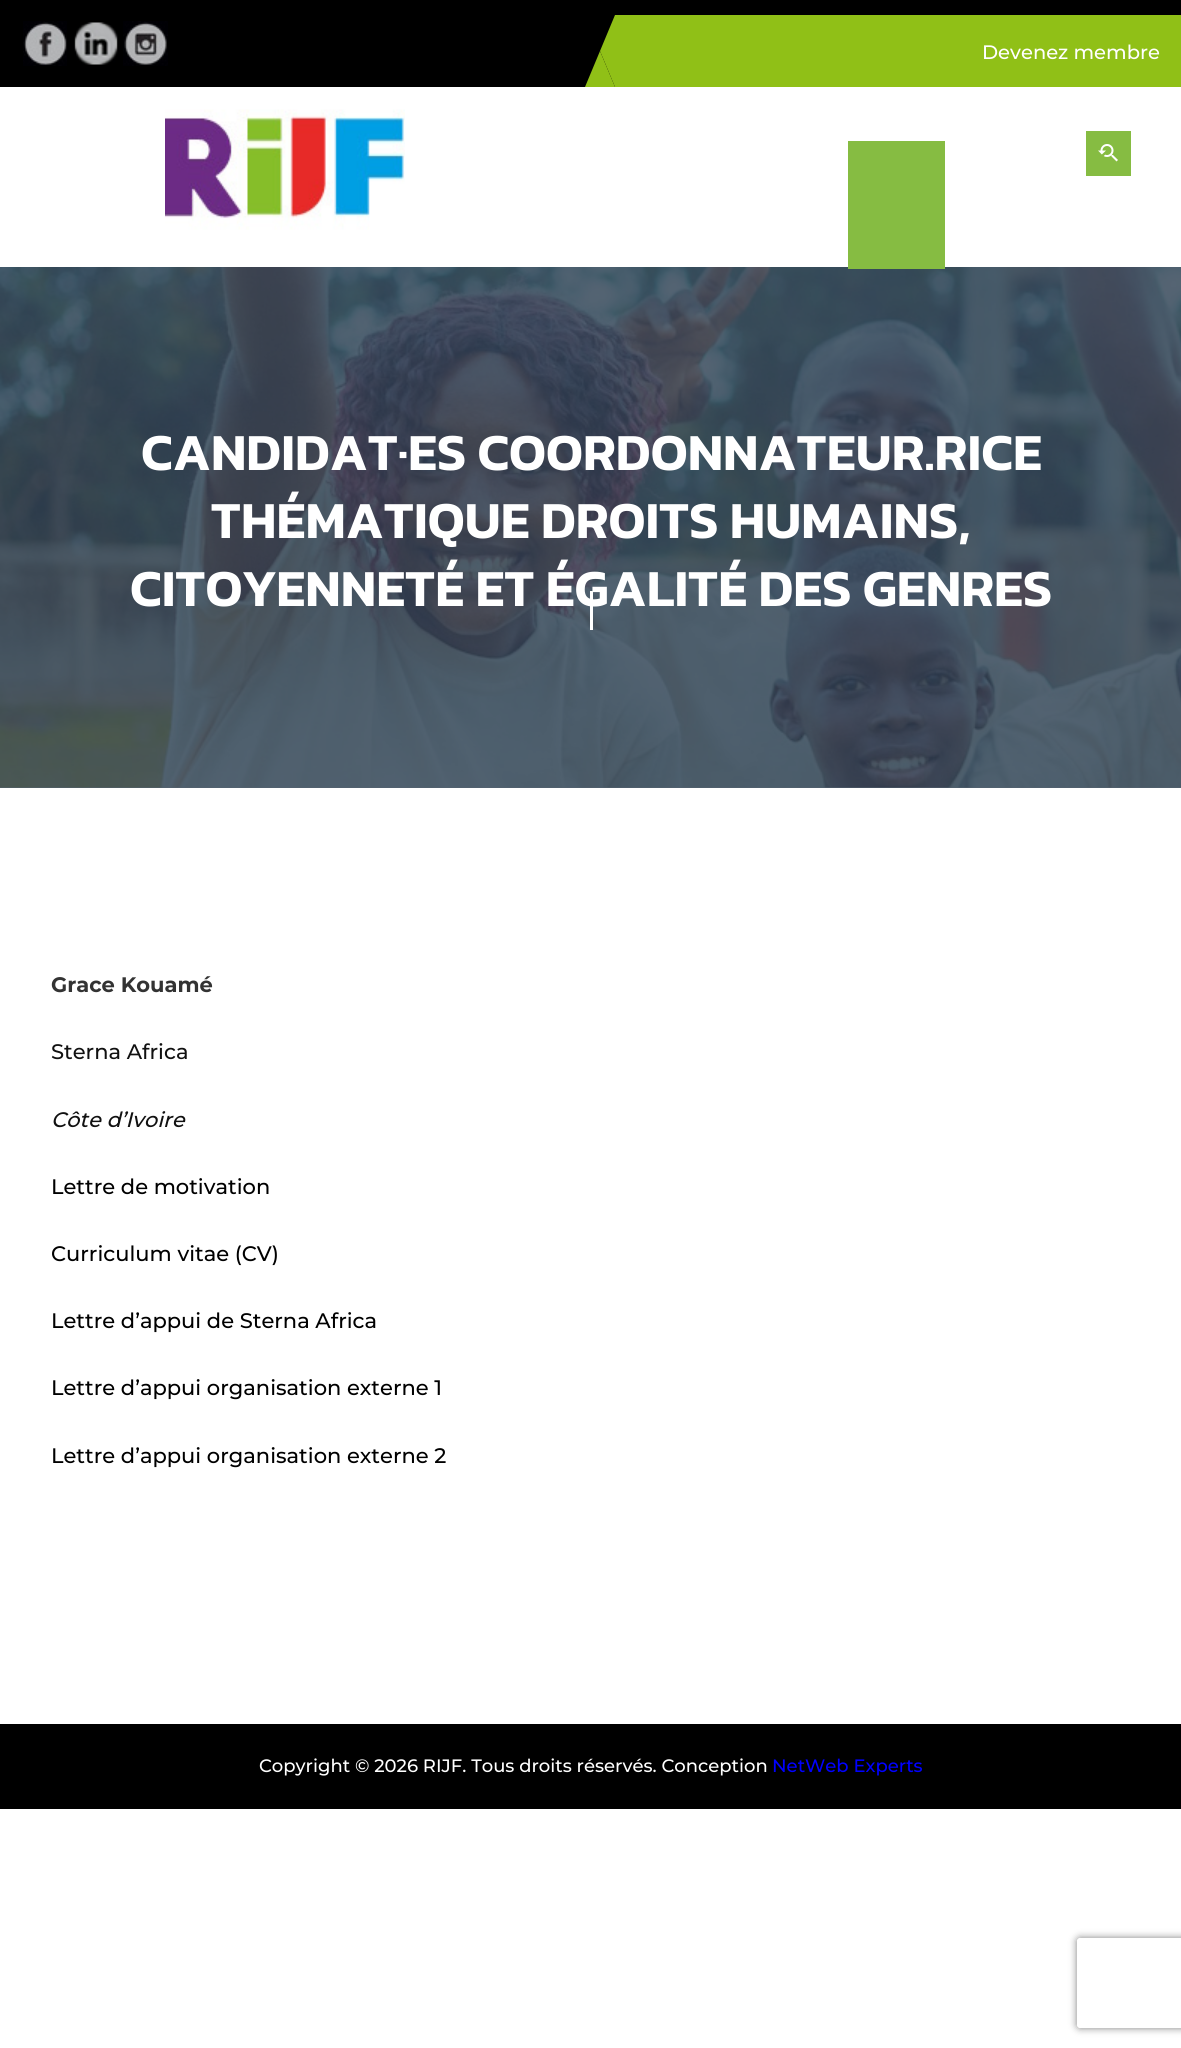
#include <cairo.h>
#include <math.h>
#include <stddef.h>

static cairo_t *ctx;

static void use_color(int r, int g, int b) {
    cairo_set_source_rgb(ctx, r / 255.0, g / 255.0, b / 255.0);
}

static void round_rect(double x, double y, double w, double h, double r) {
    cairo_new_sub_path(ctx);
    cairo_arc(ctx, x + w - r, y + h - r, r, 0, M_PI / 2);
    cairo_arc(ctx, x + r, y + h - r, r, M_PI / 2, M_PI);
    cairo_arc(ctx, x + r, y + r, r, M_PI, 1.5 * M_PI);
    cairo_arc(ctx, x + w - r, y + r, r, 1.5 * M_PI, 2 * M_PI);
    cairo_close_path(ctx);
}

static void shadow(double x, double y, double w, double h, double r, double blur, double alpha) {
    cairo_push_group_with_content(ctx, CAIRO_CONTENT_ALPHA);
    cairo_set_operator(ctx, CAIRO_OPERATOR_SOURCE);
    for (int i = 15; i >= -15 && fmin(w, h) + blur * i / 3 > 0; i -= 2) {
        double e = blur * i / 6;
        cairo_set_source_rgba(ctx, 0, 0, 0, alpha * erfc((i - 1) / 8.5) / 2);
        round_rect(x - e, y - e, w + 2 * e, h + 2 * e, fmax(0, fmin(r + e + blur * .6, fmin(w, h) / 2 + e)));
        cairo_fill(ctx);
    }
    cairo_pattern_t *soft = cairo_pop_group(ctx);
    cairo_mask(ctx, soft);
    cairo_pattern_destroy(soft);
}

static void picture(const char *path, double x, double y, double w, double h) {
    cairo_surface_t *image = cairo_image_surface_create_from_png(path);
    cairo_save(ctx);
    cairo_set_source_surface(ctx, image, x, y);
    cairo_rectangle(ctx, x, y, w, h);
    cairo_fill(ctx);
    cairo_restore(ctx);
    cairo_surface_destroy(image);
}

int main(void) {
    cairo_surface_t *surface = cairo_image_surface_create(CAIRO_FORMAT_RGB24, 1181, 2048);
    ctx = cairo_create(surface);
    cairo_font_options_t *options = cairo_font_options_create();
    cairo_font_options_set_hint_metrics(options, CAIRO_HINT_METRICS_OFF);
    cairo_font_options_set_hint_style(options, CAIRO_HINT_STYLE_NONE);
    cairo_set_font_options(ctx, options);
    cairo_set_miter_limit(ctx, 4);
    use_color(255, 255, 255);
    cairo_paint(ctx);
    use_color(0, 0, 0);
    cairo_rectangle(ctx, 0, 0, 1181, 87);
    cairo_fill(ctx);
    use_color(144, 192, 23);
    cairo_new_path(ctx);
    cairo_move_to(ctx, 615, 15);
    cairo_line_to(ctx, 615, 87);
    cairo_line_to(ctx, 600, 51);
    cairo_close_path(ctx);
    cairo_fill(ctx);
    cairo_new_path(ctx);
    cairo_move_to(ctx, 615, 87);
    cairo_line_to(ctx, 585, 87);
    cairo_line_to(ctx, 600, 51);
    cairo_close_path(ctx);
    cairo_fill(ctx);
    cairo_rectangle(ctx, 615, 15, 566, 72);
    cairo_fill(ctx);
    picture("img1.png", 23, 21, 44, 45);
    picture("img2.png", 74, 22, 44, 43);
    picture("img3.png", 123, 21, 45, 45);
    cairo_select_font_face(ctx, "Montserrat Medium", CAIRO_FONT_SLANT_NORMAL, CAIRO_FONT_WEIGHT_NORMAL);
    cairo_set_font_size(ctx, 19.5);
    use_color(255, 255, 255);
    cairo_move_to(ctx, 982, 59);
    cairo_show_text(ctx, "Devenez membre");
    picture("img4.png", 165, 109, 240, 121);
    use_color(134, 188, 66);
    cairo_rectangle(ctx, 1086, 131, 45, 45);
    cairo_fill(ctx);
    picture("img5.png", 1098, 144, 20, 18);
    use_color(84, 98, 112);
    cairo_rectangle(ctx, 0, 787, 1181, 1);
    cairo_fill(ctx);
    picture("img6.png", 0, 267, 1181, 521);
    use_color(134, 188, 66);
    cairo_rectangle(ctx, 848, 141, 97, 128);
    cairo_fill(ctx);
    cairo_select_font_face(ctx, "Kanit SemiBold", CAIRO_FONT_SLANT_NORMAL, CAIRO_FONT_WEIGHT_NORMAL);
    cairo_set_font_size(ctx, 52.5);
    use_color(255, 255, 255);
    cairo_move_to(ctx, 141, 470);
    cairo_show_text(ctx, "CANDIDAT·ES COORDONNATEUR.RICE");
    cairo_move_to(ctx, 211, 538);
    cairo_show_text(ctx, "THÉMATIQUE DROITS HUMAINS,");
    cairo_move_to(ctx, 130, 606);
    cairo_show_text(ctx, "CITOYENNETÉ ET ÉGALITÉ DES GENRES");
    cairo_rectangle(ctx, 590, 591, 3, 39);
    cairo_fill(ctx);
    cairo_select_font_face(ctx, "Montserrat", CAIRO_FONT_SLANT_NORMAL, CAIRO_FONT_WEIGHT_BOLD);
    cairo_set_font_size(ctx, 21);
    use_color(51, 51, 51);
    cairo_move_to(ctx, 51, 992);
    cairo_show_text(ctx, "Grace Kouamé");
    cairo_select_font_face(ctx, "Montserrat Medium", CAIRO_FONT_SLANT_NORMAL, CAIRO_FONT_WEIGHT_NORMAL);
    use_color(17, 17, 17);
    cairo_move_to(ctx, 51, 1059);
    cairo_show_text(ctx, "Sterna Africa");
    cairo_select_font_face(ctx, "Montserrat Medium", CAIRO_FONT_SLANT_ITALIC, CAIRO_FONT_WEIGHT_NORMAL);
    cairo_move_to(ctx, 51, 1127);
    cairo_show_text(ctx, "Côte d’Ivoire");
    cairo_select_font_face(ctx, "Montserrat Medium", CAIRO_FONT_SLANT_NORMAL, CAIRO_FONT_WEIGHT_NORMAL);
    use_color(0, 0, 0);
    cairo_move_to(ctx, 51, 1194);
    cairo_show_text(ctx, "Lettre de motivation");
    cairo_move_to(ctx, 51, 1261);
    cairo_show_text(ctx, "Curriculum vitae (CV)");
    cairo_move_to(ctx, 51, 1328);
    cairo_show_text(ctx, "Lettre d’appui de Sterna Africa");
    cairo_move_to(ctx, 51, 1395);
    cairo_show_text(ctx, "Lettre d’appui organisation externe 1");
    cairo_move_to(ctx, 51, 1463);
    cairo_show_text(ctx, "Lettre d’appui organisation externe 2");
    cairo_rectangle(ctx, 0, 1724, 1181, 85);
    cairo_fill(ctx);
    cairo_set_font_size(ctx, 18);
    use_color(255, 255, 255);
    cairo_move_to(ctx, 259, 1772);
    cairo_show_text(ctx, "Copyright © 2026 RIJF. Tous droits réservés. Conception");
    use_color(0, 0, 255);
    cairo_move_to(ctx, 772, 1772);
    cairo_show_text(ctx, "NetWeb Experts");
    cairo_save(ctx);
    cairo_set_fill_rule(ctx, CAIRO_FILL_RULE_EVEN_ODD);
    cairo_new_path(ctx);
    cairo_move_to(ctx, 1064, 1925);
    cairo_line_to(ctx, 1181, 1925);
    cairo_line_to(ctx, 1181, 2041);
    cairo_line_to(ctx, 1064, 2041);
    cairo_close_path(ctx);
    cairo_move_to(ctx, 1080, 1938);
    cairo_line_to(ctx, 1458, 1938);
    cairo_curve_to(ctx, 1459.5, 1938, 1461, 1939.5, 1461, 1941);
    cairo_line_to(ctx, 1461, 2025);
    cairo_curve_to(ctx, 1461, 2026.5, 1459.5, 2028, 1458, 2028);
    cairo_line_to(ctx, 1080, 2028);
    cairo_curve_to(ctx, 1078.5, 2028, 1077, 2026.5, 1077, 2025);
    cairo_line_to(ctx, 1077, 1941);
    cairo_curve_to(ctx, 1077, 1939.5, 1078.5, 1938, 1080, 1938);
    cairo_close_path(ctx);
    cairo_clip(ctx);
    use_color(128, 128, 128);
    shadow(1077, 1938, 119, 90, 3, 4, 1);
    cairo_restore(ctx);
    cairo_surface_write_to_png(surface, "result.png");
    cairo_font_options_destroy(options);
    cairo_destroy(ctx);
    cairo_surface_destroy(surface);
    return 0;
}
